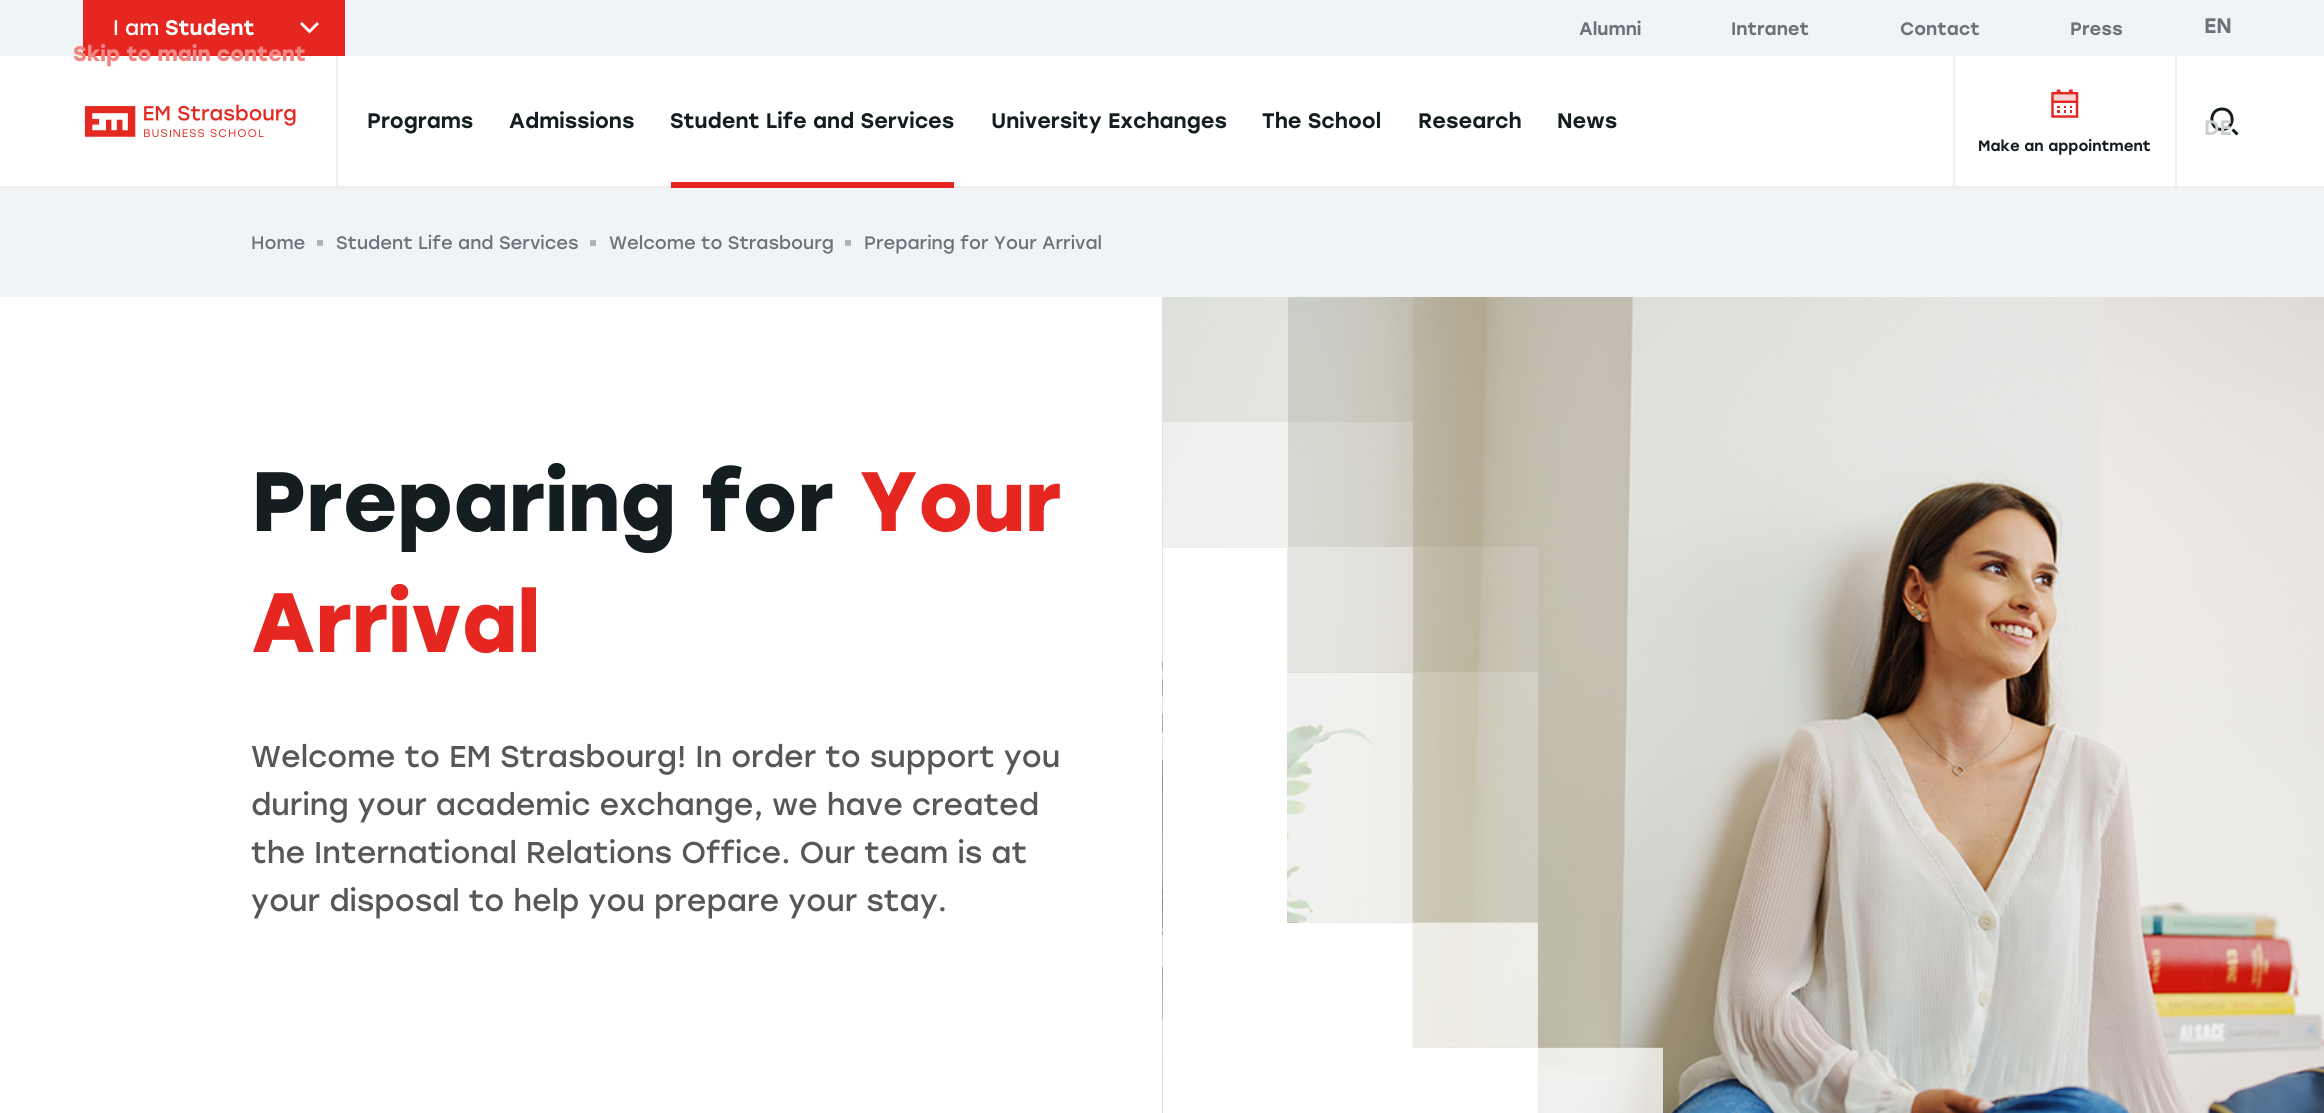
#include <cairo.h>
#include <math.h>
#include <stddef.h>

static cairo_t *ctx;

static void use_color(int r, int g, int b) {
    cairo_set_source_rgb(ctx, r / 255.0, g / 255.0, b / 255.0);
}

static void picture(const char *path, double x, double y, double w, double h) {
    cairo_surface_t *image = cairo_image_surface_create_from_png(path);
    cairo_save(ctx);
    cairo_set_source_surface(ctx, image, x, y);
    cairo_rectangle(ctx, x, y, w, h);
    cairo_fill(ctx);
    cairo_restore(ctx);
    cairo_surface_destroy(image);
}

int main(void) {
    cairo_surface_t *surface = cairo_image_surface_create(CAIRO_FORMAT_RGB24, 2324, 1113);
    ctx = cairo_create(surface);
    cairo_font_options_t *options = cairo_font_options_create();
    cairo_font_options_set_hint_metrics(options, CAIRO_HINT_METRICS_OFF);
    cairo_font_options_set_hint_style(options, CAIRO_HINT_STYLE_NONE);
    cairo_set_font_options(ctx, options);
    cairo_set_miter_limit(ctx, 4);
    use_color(255, 255, 255);
    cairo_paint(ctx);
    use_color(241, 244, 246);
    cairo_rectangle(ctx, 0, 0, 2324, 56);
    cairo_fill(ctx);
    use_color(229, 38, 33);
    cairo_rectangle(ctx, 83, 0, 262, 56);
    cairo_fill(ctx);
    cairo_select_font_face(ctx, "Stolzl", CAIRO_FONT_SLANT_NORMAL, CAIRO_FONT_WEIGHT_NORMAL);
    cairo_set_font_size(ctx, 21);
    use_color(255, 255, 255);
    cairo_move_to(ctx, 113, 35);
    cairo_show_text(ctx, "I am");
    cairo_select_font_face(ctx, "Stolzl Medium", CAIRO_FONT_SLANT_NORMAL, CAIRO_FONT_WEIGHT_NORMAL);
    cairo_move_to(ctx, 165, 35);
    cairo_show_text(ctx, "Student");
    cairo_new_path(ctx);
    cairo_move_to(ctx, 318.5, 23.5);
    cairo_line_to(ctx, 318.5, 24.5);
    cairo_line_to(ctx, 309.5, 33.5);
    cairo_line_to(ctx, 300, 24);
    cairo_line_to(ctx, 302, 22);
    cairo_line_to(ctx, 309.5, 29.5);
    cairo_line_to(ctx, 317, 22);
    cairo_close_path(ctx);
    cairo_fill(ctx);
    cairo_set_font_size(ctx, 18);
    use_color(109, 114, 122);
    cairo_move_to(ctx, 1579, 35);
    cairo_show_text(ctx, "Alumni");
    cairo_move_to(ctx, 1731, 35);
    cairo_show_text(ctx, "Intranet");
    cairo_move_to(ctx, 1900, 35);
    cairo_show_text(ctx, "Contact");
    cairo_move_to(ctx, 2070, 35);
    cairo_show_text(ctx, "Press");
    cairo_set_font_size(ctx, 21);
    cairo_move_to(ctx, 2204, 33);
    cairo_show_text(ctx, "EN");
    cairo_new_path(ctx);
    cairo_move_to(ctx, 2222, 129.5);
    cairo_curve_to(ctx, 2235.5, 129.5, 2235.5, 109, 2222, 109);
    cairo_curve_to(ctx, 2208.5, 109, 2208.5, 129.5, 2222, 129.5);
    cairo_close_path(ctx);
    cairo_move_to(ctx, 2232.5, 129.5);
    cairo_line_to(ctx, 2237.5, 134.5);
    use_color(20, 29, 32);
    cairo_set_line_width(ctx, 3);
    cairo_stroke(ctx);
    use_color(205, 207, 207);
    cairo_move_to(ctx, 2204, 135);
    cairo_show_text(ctx, "DE");
    use_color(238, 238, 238);
    cairo_rectangle(ctx, 0, 186, 2324, 2);
    cairo_fill(ctx);
    cairo_rectangle(ctx, 336, 56, 2, 132);
    cairo_fill(ctx);
    picture("img1.png", 84, 104, 212, 34);
    use_color(20, 29, 32);
    cairo_move_to(ctx, 367, 128);
    cairo_show_text(ctx, "Programs");
    cairo_move_to(ctx, 509, 128);
    cairo_show_text(ctx, "Admissions");
    cairo_move_to(ctx, 670, 128);
    cairo_show_text(ctx, "Student Life and Services");
    use_color(229, 38, 33);
    cairo_rectangle(ctx, 671, 182, 283, 6);
    cairo_fill(ctx);
    use_color(20, 29, 32);
    cairo_move_to(ctx, 991, 128);
    cairo_show_text(ctx, "University Exchanges");
    cairo_move_to(ctx, 1262, 128);
    cairo_show_text(ctx, "The School");
    cairo_move_to(ctx, 1418, 128);
    cairo_show_text(ctx, "Research");
    cairo_move_to(ctx, 1557, 128);
    cairo_show_text(ctx, "News");
    use_color(238, 238, 238);
    cairo_rectangle(ctx, 2175, 56, 2, 132);
    cairo_fill(ctx);
    cairo_rectangle(ctx, 1953, 56, 2, 132);
    cairo_fill(ctx);
    picture("img2.png", 2051, 89, 28, 29);
    cairo_set_font_size(ctx, 15);
    use_color(20, 29, 32);
    cairo_move_to(ctx, 1978, 151);
    cairo_show_text(ctx, "Make an appointment");
    use_color(241, 244, 246);
    cairo_rectangle(ctx, 0, 188, 2324, 109);
    cairo_fill(ctx);
    cairo_select_font_face(ctx, "Stolzl", CAIRO_FONT_SLANT_NORMAL, CAIRO_FONT_WEIGHT_NORMAL);
    cairo_set_font_size(ctx, 18);
    use_color(109, 114, 122);
    cairo_move_to(ctx, 251, 249);
    cairo_show_text(ctx, "Home");
    use_color(175, 179, 184);
    cairo_rectangle(ctx, 317, 240, 6, 6);
    cairo_fill(ctx);
    use_color(109, 114, 122);
    cairo_move_to(ctx, 336, 249);
    cairo_show_text(ctx, "Student Life and Services");
    use_color(175, 179, 184);
    cairo_rectangle(ctx, 590, 240, 6, 6);
    cairo_fill(ctx);
    use_color(109, 114, 122);
    cairo_move_to(ctx, 609, 249);
    cairo_show_text(ctx, "Welcome to Strasbourg");
    use_color(175, 179, 184);
    cairo_rectangle(ctx, 845, 240, 6, 6);
    cairo_fill(ctx);
    use_color(109, 114, 122);
    cairo_move_to(ctx, 864, 249);
    cairo_show_text(ctx, "Preparing for Your Arrival");
    cairo_select_font_face(ctx, "Stolzl", CAIRO_FONT_SLANT_NORMAL, CAIRO_FONT_WEIGHT_BOLD);
    cairo_set_font_size(ctx, 84);
    use_color(20, 29, 32);
    cairo_move_to(ctx, 251, 531);
    cairo_show_text(ctx, "Preparing for");
    use_color(229, 38, 33);
    cairo_move_to(ctx, 859, 531);
    cairo_show_text(ctx, "Your");
    cairo_move_to(ctx, 251, 652);
    cairo_show_text(ctx, "Arrival");
    cairo_select_font_face(ctx, "Stolzl", CAIRO_FONT_SLANT_NORMAL, CAIRO_FONT_WEIGHT_NORMAL);
    cairo_set_font_size(ctx, 30);
    use_color(87, 87, 86);
    cairo_move_to(ctx, 251, 767);
    cairo_show_text(ctx, "Welcome to EM Strasbourg! In order to support you");
    cairo_move_to(ctx, 251, 815);
    cairo_show_text(ctx, "during your academic exchange, we have created");
    cairo_move_to(ctx, 251, 863);
    cairo_show_text(ctx, "the International Relations Office. Our team is at");
    cairo_move_to(ctx, 251, 911);
    cairo_show_text(ctx, "your disposal to help you prepare your stay.");
    picture("img3.png", 1162, 297, 1162, 816);
    picture("img4.png", 1163, 297, 500, 816);
    cairo_select_font_face(ctx, "Stolzl", CAIRO_FONT_SLANT_NORMAL, CAIRO_FONT_WEIGHT_BOLD);
    cairo_set_font_size(ctx, 21);
    use_color(240, 133, 130);
    cairo_move_to(ctx, 73, 61);
    cairo_show_text(ctx, "Skip to main content");
    cairo_surface_write_to_png(surface, "result.png");
    cairo_font_options_destroy(options);
    cairo_destroy(ctx);
    cairo_surface_destroy(surface);
    return 0;
}
